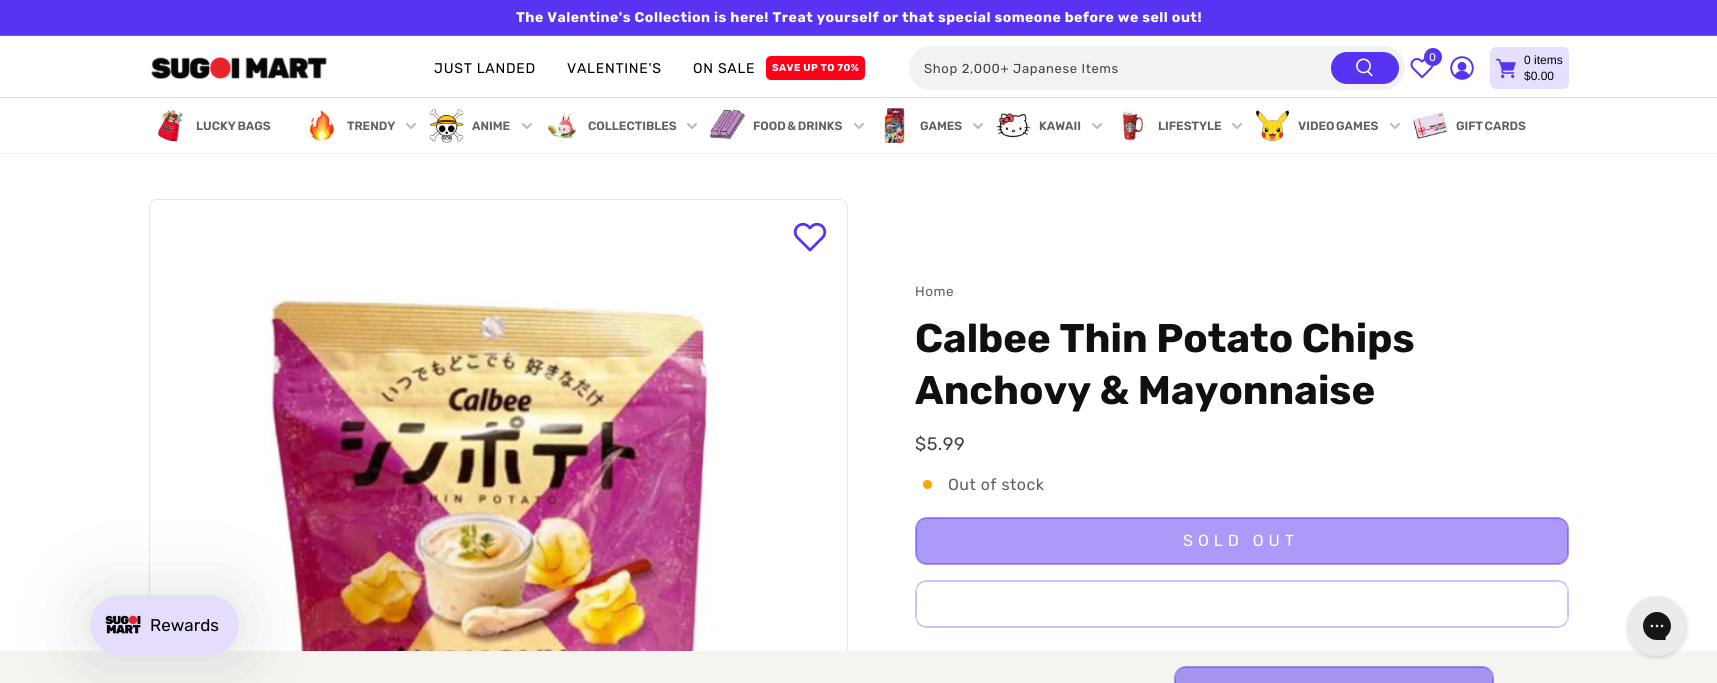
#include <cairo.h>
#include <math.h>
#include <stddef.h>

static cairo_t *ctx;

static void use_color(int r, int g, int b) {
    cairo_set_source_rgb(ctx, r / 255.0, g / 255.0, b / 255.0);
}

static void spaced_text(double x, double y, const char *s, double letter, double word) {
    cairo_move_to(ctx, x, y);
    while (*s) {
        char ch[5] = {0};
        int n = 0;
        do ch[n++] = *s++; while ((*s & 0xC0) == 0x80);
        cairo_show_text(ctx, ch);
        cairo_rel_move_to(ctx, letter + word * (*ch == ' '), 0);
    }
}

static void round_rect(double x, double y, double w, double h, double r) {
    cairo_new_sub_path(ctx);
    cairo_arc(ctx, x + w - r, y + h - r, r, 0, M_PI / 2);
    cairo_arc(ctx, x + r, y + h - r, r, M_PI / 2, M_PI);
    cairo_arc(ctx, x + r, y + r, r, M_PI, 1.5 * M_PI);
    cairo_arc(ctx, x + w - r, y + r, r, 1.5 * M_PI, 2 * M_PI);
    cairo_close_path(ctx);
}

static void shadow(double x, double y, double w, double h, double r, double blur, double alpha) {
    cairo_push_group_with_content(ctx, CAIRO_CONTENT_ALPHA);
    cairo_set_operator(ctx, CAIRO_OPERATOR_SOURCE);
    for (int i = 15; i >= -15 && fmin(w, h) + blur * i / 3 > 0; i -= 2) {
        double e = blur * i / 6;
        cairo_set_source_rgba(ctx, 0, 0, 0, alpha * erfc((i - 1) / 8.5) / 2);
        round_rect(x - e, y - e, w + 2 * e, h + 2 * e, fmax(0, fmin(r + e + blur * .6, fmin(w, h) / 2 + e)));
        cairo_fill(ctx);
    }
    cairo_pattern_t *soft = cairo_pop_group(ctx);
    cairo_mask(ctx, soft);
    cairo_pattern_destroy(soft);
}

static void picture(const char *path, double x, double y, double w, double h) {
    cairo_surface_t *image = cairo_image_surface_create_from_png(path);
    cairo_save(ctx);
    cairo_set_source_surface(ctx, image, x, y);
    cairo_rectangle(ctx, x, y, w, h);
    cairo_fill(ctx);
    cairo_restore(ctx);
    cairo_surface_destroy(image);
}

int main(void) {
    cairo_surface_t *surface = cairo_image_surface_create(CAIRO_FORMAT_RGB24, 1717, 683);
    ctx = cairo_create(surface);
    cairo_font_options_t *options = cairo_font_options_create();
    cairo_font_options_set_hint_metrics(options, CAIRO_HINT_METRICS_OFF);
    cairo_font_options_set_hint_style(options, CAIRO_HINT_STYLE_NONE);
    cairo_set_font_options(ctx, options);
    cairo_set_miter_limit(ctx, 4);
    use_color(255, 255, 255);
    cairo_paint(ctx);
    use_color(88, 51, 241);
    cairo_rectangle(ctx, 0, 0, 1717, 35);
    cairo_fill(ctx);
    cairo_select_font_face(ctx, "Rubik", CAIRO_FONT_SLANT_NORMAL, CAIRO_FONT_WEIGHT_BOLD);
    cairo_set_font_size(ctx, 14);
    use_color(255, 255, 255);
    spaced_text(516, 22, "The Valentine's Collection is here! Treat yourself or that special someone before we sell out!", 0.5, 0);
    use_color(113, 82, 243);
    cairo_rectangle(ctx, 0, 35, 1717, 1);
    cairo_fill(ctx);
    picture("img1.png", 151, 57, 176, 23);
    cairo_select_font_face(ctx, "Rubik", CAIRO_FONT_SLANT_NORMAL, CAIRO_FONT_WEIGHT_NORMAL);
    use_color(0, 0, 0);
    spaced_text(434, 73, "JUST LANDED", 0.75, 0);
    spaced_text(567, 73, "VALENTINE'S", 0.75, 0);
    spaced_text(693, 73, "ON SALE", 0.75, 0);
    use_color(255, 0, 24);
    round_rect(766, 56, 99, 24, 5);
    cairo_fill(ctx);
    cairo_select_font_face(ctx, "Rubik", CAIRO_FONT_SLANT_NORMAL, CAIRO_FONT_WEIGHT_BOLD);
    cairo_set_font_size(ctx, 10);
    use_color(255, 255, 255);
    spaced_text(772, 71, "SAVE UP TO 70%", 0.4, 0);
    use_color(242, 242, 242);
    round_rect(909, 46, 496, 44, 22);
    cairo_fill(ctx);
    cairo_select_font_face(ctx, "Rubik", CAIRO_FONT_SLANT_NORMAL, CAIRO_FONT_WEIGHT_NORMAL);
    cairo_set_font_size(ctx, 13);
    use_color(68, 68, 68);
    spaced_text(924, 73, "Shop 2,000+ Japanese Items", 0.65, 0);
    use_color(88, 51, 241);
    round_rect(1331, 52, 68, 32, 16);
    cairo_fill(ctx);
    picture("img2.png", 1356, 58, 17, 19);
    picture("img3.png", 1410, 58, 24, 21);
    cairo_arc(ctx, 1433, 57, 9, 0, 2 * M_PI);
    cairo_fill(ctx);
    cairo_set_font_size(ctx, 11);
    use_color(255, 255, 255);
    spaced_text(1429, 61, "0", 0.5, 0);
    picture("img4.png", 1450, 56, 24, 24);
    use_color(230, 223, 255);
    round_rect(1490, 47, 79, 42, 6);
    cairo_fill(ctx);
    picture("img5.png", 1496, 58, 20, 20);
    cairo_select_font_face(ctx, "Liberation Sans", CAIRO_FONT_SLANT_NORMAL, CAIRO_FONT_WEIGHT_NORMAL);
    cairo_set_font_size(ctx, 12);
    use_color(0, 0, 0);
    cairo_move_to(ctx, 1524, 64);
    cairo_show_text(ctx, "0");
    cairo_move_to(ctx, 1534, 64);
    cairo_show_text(ctx, "items");
    cairo_move_to(ctx, 1524, 80);
    cairo_show_text(ctx, "$0.00");
    use_color(228, 224, 206);
    cairo_rectangle(ctx, 0, 97, 1717, 1);
    cairo_fill(ctx);
    use_color(242, 242, 242);
    cairo_rectangle(ctx, 0, 153, 1717, 1);
    cairo_fill(ctx);
    picture("img6.png", 157, 109, 27, 33);
    cairo_select_font_face(ctx, "Rubik SemiBold", CAIRO_FONT_SLANT_NORMAL, CAIRO_FONT_WEIGHT_NORMAL);
    use_color(96, 96, 96);
    spaced_text(196, 130, "LUCKY BAGS", 0, -1);
    picture("img7.png", 309, 110, 26, 32);
    cairo_move_to(ctx, 347, 130);
    cairo_show_text(ctx, "TRENDY");
    cairo_new_path(ctx);
    cairo_move_to(ctx, 407, 124);
    cairo_line_to(ctx, 411, 128);
    cairo_line_to(ctx, 415, 124);
    use_color(184, 184, 184);
    cairo_set_line_cap(ctx, CAIRO_LINE_CAP_ROUND);
    cairo_set_line_join(ctx, CAIRO_LINE_JOIN_ROUND);
    cairo_stroke(ctx);
    picture("img8.png", 429, 108, 35, 35);
    use_color(96, 96, 96);
    cairo_move_to(ctx, 472, 130);
    cairo_show_text(ctx, "ANIME");
    cairo_new_path(ctx);
    cairo_move_to(ctx, 523, 124);
    cairo_line_to(ctx, 527, 128);
    cairo_line_to(ctx, 531, 124);
    use_color(184, 184, 184);
    cairo_stroke(ctx);
    picture("img9.png", 547, 113, 30, 26);
    use_color(96, 96, 96);
    cairo_move_to(ctx, 588, 130);
    cairo_show_text(ctx, "COLLECTIBLES");
    cairo_new_path(ctx);
    cairo_move_to(ctx, 688, 124);
    cairo_line_to(ctx, 692, 128);
    cairo_line_to(ctx, 696, 124);
    use_color(184, 184, 184);
    cairo_stroke(ctx);
    picture("img10.png", 710, 109, 35, 30);
    use_color(96, 96, 96);
    spaced_text(753, 130, "FOOD & DRINKS", 0, -1);
    cairo_new_path(ctx);
    cairo_move_to(ctx, 855, 124);
    cairo_line_to(ctx, 859, 128);
    cairo_line_to(ctx, 863, 124);
    use_color(184, 184, 184);
    cairo_stroke(ctx);
    picture("img11.png", 884, 108, 21, 35);
    use_color(96, 96, 96);
    cairo_move_to(ctx, 920, 130);
    cairo_show_text(ctx, "GAMES");
    cairo_new_path(ctx);
    cairo_move_to(ctx, 974, 124);
    cairo_line_to(ctx, 978, 128);
    cairo_line_to(ctx, 982, 124);
    use_color(184, 184, 184);
    cairo_stroke(ctx);
    picture("img12.png", 996, 113, 35, 25);
    use_color(96, 96, 96);
    cairo_move_to(ctx, 1039, 130);
    cairo_show_text(ctx, "KAWAII");
    cairo_new_path(ctx);
    cairo_move_to(ctx, 1093, 124);
    cairo_line_to(ctx, 1097, 128);
    cairo_line_to(ctx, 1101, 124);
    use_color(184, 184, 184);
    cairo_stroke(ctx);
    picture("img13.png", 1121, 111, 22, 31);
    use_color(96, 96, 96);
    cairo_move_to(ctx, 1158, 130);
    cairo_show_text(ctx, "LIFESTYLE");
    cairo_new_path(ctx);
    cairo_move_to(ctx, 1233, 124);
    cairo_line_to(ctx, 1237, 128);
    cairo_line_to(ctx, 1241, 124);
    use_color(184, 184, 184);
    cairo_stroke(ctx);
    picture("img14.png", 1255, 110, 35, 31);
    use_color(96, 96, 96);
    spaced_text(1298, 130, "VIDEO GAMES", 0, -1);
    cairo_new_path(ctx);
    cairo_move_to(ctx, 1391, 124);
    cairo_line_to(ctx, 1395, 128);
    cairo_line_to(ctx, 1399, 124);
    use_color(184, 184, 184);
    cairo_stroke(ctx);
    picture("img15.png", 1413, 112, 35, 27);
    use_color(96, 96, 96);
    spaced_text(1456, 130, "GIFT CARDS", 0, -1);
    round_rect(149.5, 199.5, 698, 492, 7.5);
    use_color(232, 232, 225);
    cairo_set_line_width(ctx, 1);
    cairo_set_line_cap(ctx, CAIRO_LINE_CAP_BUTT);
    cairo_set_line_join(ctx, CAIRO_LINE_JOIN_MITER);
    cairo_stroke(ctx);
    use_color(255, 255, 255);
    round_rect(150, 200, 697, 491, 8);
    cairo_fill(ctx);
    picture("img16.png", 267, 296, 452, 355);
    picture("img17.png", 793, 222, 34, 30);
    cairo_select_font_face(ctx, "Rubik", CAIRO_FONT_SLANT_NORMAL, CAIRO_FONT_WEIGHT_NORMAL);
    cairo_set_font_size(ctx, 13.5);
    use_color(96, 96, 96);
    spaced_text(915, 296, "Home", 0.5, 0);
    cairo_select_font_face(ctx, "Rubik", CAIRO_FONT_SLANT_NORMAL, CAIRO_FONT_WEIGHT_BOLD);
    cairo_set_font_size(ctx, 40);
    use_color(16, 16, 16);
    cairo_move_to(ctx, 915, 352);
    cairo_show_text(ctx, "Calbee Thin Potato Chips");
    cairo_move_to(ctx, 915, 404);
    cairo_show_text(ctx, "Anchovy & Mayonnaise");
    cairo_select_font_face(ctx, "Rubik", CAIRO_FONT_SLANT_NORMAL, CAIRO_FONT_WEIGHT_NORMAL);
    cairo_set_font_size(ctx, 18);
    use_color(68, 68, 68);
    spaced_text(915, 450, "$5.99", 0.5, 0);
    use_color(255, 165, 0);
    cairo_new_path(ctx);
    cairo_arc(ctx, 927.5, 484.5, 4.5, 0, 2 * M_PI);
    cairo_fill(ctx);
    cairo_set_font_size(ctx, 16);
    use_color(96, 96, 96);
    spaced_text(948, 490, "Out of stock", 0.5, 0);
    use_color(172, 153, 248);
    round_rect(915.5, 517.5, 653, 47, 11.5);
    cairo_fill_preserve(ctx);
    cairo_stroke(ctx);
    use_color(130, 102, 245);
    cairo_set_fill_rule(ctx, CAIRO_FILL_RULE_EVEN_ODD);
    cairo_new_path(ctx);
    cairo_move_to(ctx, 927, 518);
    cairo_curve_to(ctx, 914, 518, 916, 532, 916, 541);
    cairo_curve_to(ctx, 916, 550, 914, 564, 927, 564);
    cairo_line_to(ctx, 1557, 564);
    cairo_curve_to(ctx, 1570, 564, 1568, 550, 1568, 541);
    cairo_curve_to(ctx, 1568, 532, 1570, 518, 1557, 518);
    cairo_close_path(ctx);
    cairo_move_to(ctx, 926, 519);
    cairo_curve_to(ctx, 921, 519, 917, 523, 917, 528);
    cairo_line_to(ctx, 917, 554);
    cairo_curve_to(ctx, 917, 559, 921, 563, 926, 563);
    cairo_line_to(ctx, 1558, 563);
    cairo_curve_to(ctx, 1563, 563, 1567, 559, 1567, 554);
    cairo_line_to(ctx, 1567, 528);
    cairo_curve_to(ctx, 1567, 523, 1563, 519, 1558, 519);
    cairo_close_path(ctx);
    cairo_fill(ctx);
    use_color(255, 255, 255);
    spaced_text(1183, 546, "SOLD OUT", 5, 0);
    round_rect(915.5, 580.5, 653, 47, 11.5);
    use_color(205, 194, 251);
    cairo_stroke(ctx);
    use_color(255, 255, 255);
    round_rect(916, 581, 652, 46, 11);
    cairo_fill(ctx);
    cairo_set_source_rgba(ctx, 0.345, 0.2, 0.945, 0.3);
    cairo_new_path(ctx);
    cairo_move_to(ctx, 927, 581);
    cairo_curve_to(ctx, 914, 581, 916, 595, 916, 604);
    cairo_curve_to(ctx, 916, 613, 914, 627, 927, 627);
    cairo_line_to(ctx, 1557, 627);
    cairo_curve_to(ctx, 1570, 627, 1568, 613, 1568, 604);
    cairo_curve_to(ctx, 1568, 595, 1570, 581, 1557, 581);
    cairo_close_path(ctx);
    cairo_move_to(ctx, 926, 582);
    cairo_curve_to(ctx, 921, 582, 917, 586, 917, 591);
    cairo_line_to(ctx, 917, 617);
    cairo_curve_to(ctx, 917, 622, 921, 626, 926, 626);
    cairo_line_to(ctx, 1558, 626);
    cairo_curve_to(ctx, 1563, 626, 1567, 622, 1567, 617);
    cairo_line_to(ctx, 1567, 591);
    cairo_curve_to(ctx, 1567, 586, 1563, 582, 1558, 582);
    cairo_close_path(ctx);
    cairo_fill(ctx);
    use_color(246, 244, 241);
    cairo_rectangle(ctx, 0, 651, 1717, 32);
    cairo_fill(ctx);
    use_color(167, 148, 241);
    round_rect(1174.5, 666.5, 319, 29, 11.5);
    cairo_fill_preserve(ctx);
    cairo_stroke(ctx);
    use_color(128, 100, 241);
    cairo_new_path(ctx);
    cairo_move_to(ctx, 1186, 667);
    cairo_curve_to(ctx, 1173, 667, 1175, 683, 1175, 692);
    cairo_curve_to(ctx, 1175, 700, 1173, 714, 1184, 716);
    cairo_line_to(ctx, 1482, 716);
    cairo_curve_to(ctx, 1495, 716, 1493, 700, 1493, 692);
    cairo_curve_to(ctx, 1493, 683, 1495, 667, 1482, 667);
    cairo_close_path(ctx);
    cairo_move_to(ctx, 1185, 668);
    cairo_curve_to(ctx, 1180, 668, 1176, 672, 1176, 677);
    cairo_line_to(ctx, 1176, 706);
    cairo_curve_to(ctx, 1176, 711, 1180, 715, 1185, 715);
    cairo_line_to(ctx, 1483, 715);
    cairo_curve_to(ctx, 1488, 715, 1492, 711, 1492, 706);
    cairo_line_to(ctx, 1492, 677);
    cairo_curve_to(ctx, 1492, 672, 1488, 668, 1483, 668);
    cairo_close_path(ctx);
    cairo_fill(ctx);
    use_color(0, 0, 0);
    shadow(90, 595, 149, 60, 30, 40, 0.12);
    use_color(230, 221, 252);
    round_rect(90, 595, 149, 60, 30);
    cairo_fill(ctx);
    picture("img18.png", 105, 615, 36, 19);
    cairo_set_font_size(ctx, 17);
    use_color(0, 0, 0);
    cairo_move_to(ctx, 150, 631);
    cairo_show_text(ctx, "Rewards");
    picture("img19.png", 1625, 596, 64, 64);
    cairo_surface_write_to_png(surface, "result.png");
    cairo_font_options_destroy(options);
    cairo_destroy(ctx);
    cairo_surface_destroy(surface);
    return 0;
}
